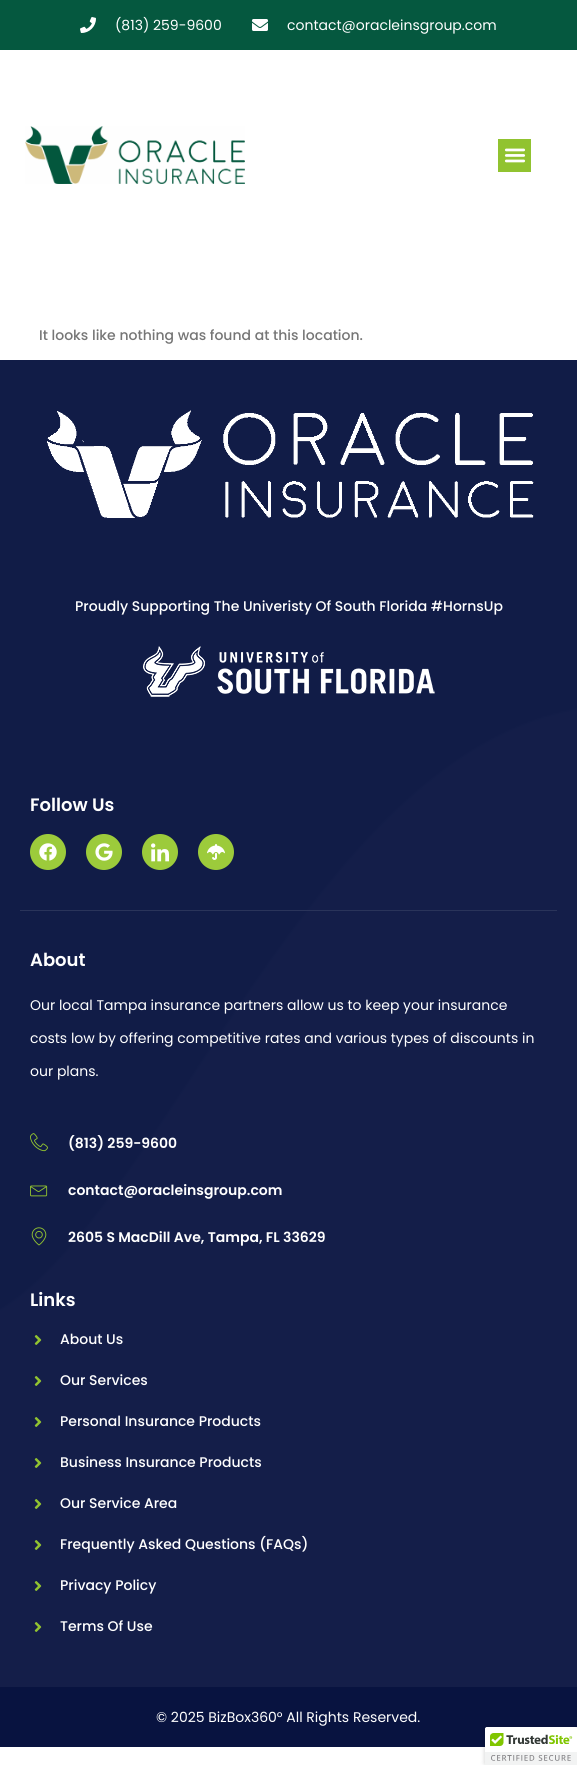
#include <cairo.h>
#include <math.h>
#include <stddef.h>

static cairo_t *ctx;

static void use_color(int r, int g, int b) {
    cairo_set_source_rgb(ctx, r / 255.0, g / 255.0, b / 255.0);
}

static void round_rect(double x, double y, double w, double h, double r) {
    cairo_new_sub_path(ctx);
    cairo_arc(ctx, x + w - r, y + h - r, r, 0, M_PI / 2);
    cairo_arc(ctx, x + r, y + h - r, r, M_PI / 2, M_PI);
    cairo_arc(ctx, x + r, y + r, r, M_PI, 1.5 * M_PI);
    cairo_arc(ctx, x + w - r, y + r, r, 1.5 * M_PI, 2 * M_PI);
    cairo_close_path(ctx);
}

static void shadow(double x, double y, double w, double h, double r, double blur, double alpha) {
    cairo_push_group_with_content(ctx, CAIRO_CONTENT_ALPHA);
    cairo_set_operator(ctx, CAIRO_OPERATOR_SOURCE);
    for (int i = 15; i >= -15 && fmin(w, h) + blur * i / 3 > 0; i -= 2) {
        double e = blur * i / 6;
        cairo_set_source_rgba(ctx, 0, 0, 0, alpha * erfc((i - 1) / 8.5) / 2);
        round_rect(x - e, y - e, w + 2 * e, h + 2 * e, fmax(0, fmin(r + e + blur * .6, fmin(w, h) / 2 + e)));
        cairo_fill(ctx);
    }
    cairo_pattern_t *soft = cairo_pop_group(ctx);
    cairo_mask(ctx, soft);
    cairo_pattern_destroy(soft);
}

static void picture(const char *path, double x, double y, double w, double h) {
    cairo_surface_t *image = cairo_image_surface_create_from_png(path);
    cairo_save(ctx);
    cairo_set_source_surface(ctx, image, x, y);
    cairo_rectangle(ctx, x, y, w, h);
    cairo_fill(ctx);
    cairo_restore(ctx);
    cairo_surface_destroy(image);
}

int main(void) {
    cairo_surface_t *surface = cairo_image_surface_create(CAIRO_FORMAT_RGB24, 577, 1765);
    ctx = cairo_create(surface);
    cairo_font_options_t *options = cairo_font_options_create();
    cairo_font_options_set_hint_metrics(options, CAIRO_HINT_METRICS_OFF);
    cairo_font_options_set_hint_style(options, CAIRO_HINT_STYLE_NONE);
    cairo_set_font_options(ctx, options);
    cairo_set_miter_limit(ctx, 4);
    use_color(255, 255, 255);
    cairo_paint(ctx);
    use_color(5, 88, 63);
    cairo_rectangle(ctx, 0, 0, 577, 50);
    cairo_fill(ctx);
    picture("img1.png", 80, 17, 16, 16);
    cairo_select_font_face(ctx, "Poppins", CAIRO_FONT_SLANT_NORMAL, CAIRO_FONT_WEIGHT_NORMAL);
    cairo_set_font_size(ctx, 14);
    use_color(255, 255, 255);
    cairo_move_to(ctx, 115, 30);
    cairo_show_text(ctx, "(813) 259-9600");
    picture("img2.png", 252, 19, 16, 12);
    cairo_move_to(ctx, 287, 30);
    cairo_show_text(ctx, "contact@oracleinsgroup.com");
    picture("img3.png", 25, 126, 220, 58);
    use_color(145, 195, 48);
    cairo_rectangle(ctx, 498, 139, 33, 33);
    cairo_fill(ctx);
    picture("img4.png", 504, 148, 22, 15);
    cairo_select_font_face(ctx, "Poppins Medium", CAIRO_FONT_SLANT_NORMAL, CAIRO_FONT_WEIGHT_NORMAL);
    use_color(118, 118, 118);
    cairo_move_to(ctx, 39, 340);
    cairo_show_text(ctx, "It looks like nothing was found at this location.");
    picture("img5.png", 0, 360, 577, 1327);
    use_color(42, 52, 90);
    cairo_rectangle(ctx, 20, 910, 537, 1);
    cairo_fill(ctx);
    picture("img6.png", 47, 410, 487, 108);
    use_color(255, 255, 255);
    cairo_move_to(ctx, 75, 611);
    cairo_show_text(ctx, "Proudly Supporting The Univeristy Of South Florida #HornsUp");
    picture("img7.png", 143, 646, 292, 51);
    cairo_select_font_face(ctx, "Poppins SemiBold", CAIRO_FONT_SLANT_NORMAL, CAIRO_FONT_WEIGHT_NORMAL);
    cairo_set_font_size(ctx, 18);
    cairo_move_to(ctx, 30, 811);
    cairo_show_text(ctx, "Follow Us");
    use_color(156, 203, 59);
    cairo_new_path(ctx);
    cairo_arc(ctx, 48, 852, 18, 0, 2 * M_PI);
    cairo_fill(ctx);
    picture("img8.png", 39, 843, 18, 18);
    cairo_arc(ctx, 104, 852, 18, 0, 2 * M_PI);
    cairo_fill(ctx);
    picture("img9.png", 95, 843, 18, 18);
    cairo_arc(ctx, 160, 852, 18, 0, 2 * M_PI);
    cairo_fill(ctx);
    picture("img10.png", 151, 843, 18, 19);
    cairo_arc(ctx, 216, 852, 18, 0, 2 * M_PI);
    cairo_fill(ctx);
    picture("img11.png", 207, 844, 18, 16);
    use_color(255, 255, 255);
    cairo_move_to(ctx, 30, 966);
    cairo_show_text(ctx, "About");
    cairo_select_font_face(ctx, "Poppins", CAIRO_FONT_SLANT_NORMAL, CAIRO_FONT_WEIGHT_NORMAL);
    cairo_set_font_size(ctx, 14);
    cairo_move_to(ctx, 30, 1010);
    cairo_show_text(ctx, "Our local Tampa insurance partners allow us to keep your insurance");
    cairo_move_to(ctx, 30, 1043);
    cairo_show_text(ctx, "costs low by offering competitive rates and various types of discounts in");
    cairo_move_to(ctx, 30, 1076);
    cairo_show_text(ctx, "our plans.");
    picture("img12.png", 30, 1133, 18, 19);
    cairo_select_font_face(ctx, "Poppins SemiBold", CAIRO_FONT_SLANT_NORMAL, CAIRO_FONT_WEIGHT_NORMAL);
    cairo_move_to(ctx, 68, 1148);
    cairo_show_text(ctx, "(813) 259-9600");
    picture("img13.png", 30, 1185, 18, 12);
    cairo_move_to(ctx, 68, 1195);
    cairo_show_text(ctx, "contact@oracleinsgroup.com");
    picture("img14.png", 31, 1227, 16, 19);
    cairo_move_to(ctx, 68, 1242);
    cairo_show_text(ctx, "2605 S MacDill Ave, Tampa, FL 33629");
    cairo_set_font_size(ctx, 18);
    cairo_move_to(ctx, 30, 1306);
    cairo_show_text(ctx, "Links");
    picture("img15.png", 34, 1335, 8, 10);
    cairo_select_font_face(ctx, "Poppins Medium", CAIRO_FONT_SLANT_NORMAL, CAIRO_FONT_WEIGHT_NORMAL);
    cairo_set_font_size(ctx, 14);
    cairo_move_to(ctx, 60, 1344);
    cairo_show_text(ctx, "About Us");
    picture("img15.png", 34, 1376, 8, 10);
    cairo_move_to(ctx, 60, 1385);
    cairo_show_text(ctx, "Our Services");
    picture("img15.png", 34, 1417, 8, 10);
    cairo_move_to(ctx, 60, 1426);
    cairo_show_text(ctx, "Personal Insurance Products");
    picture("img15.png", 34, 1458, 8, 10);
    cairo_move_to(ctx, 60, 1467);
    cairo_show_text(ctx, "Business Insurance Products");
    picture("img15.png", 34, 1499, 8, 10);
    cairo_move_to(ctx, 60, 1508);
    cairo_show_text(ctx, "Our Service Area");
    picture("img15.png", 34, 1540, 8, 10);
    cairo_move_to(ctx, 60, 1549);
    cairo_show_text(ctx, "Frequently Asked Questions (FAQs)");
    picture("img15.png", 34, 1581, 8, 10);
    cairo_move_to(ctx, 60, 1590);
    cairo_show_text(ctx, "Privacy Policy");
    picture("img15.png", 34, 1622, 8, 10);
    cairo_move_to(ctx, 60, 1631);
    cairo_show_text(ctx, "Terms Of Use");
    use_color(8, 19, 64);
    cairo_rectangle(ctx, 0, 1687, 577, 60);
    cairo_fill(ctx);
    cairo_select_font_face(ctx, "Poppins", CAIRO_FONT_SLANT_NORMAL, CAIRO_FONT_WEIGHT_NORMAL);
    use_color(255, 255, 255);
    cairo_move_to(ctx, 156, 1722);
    cairo_show_text(ctx, "© 2025 BizBox360° All Rights Reserved.");
    use_color(0, 0, 0);
    shadow(485, 1727, 92, 38, 2, 2.5, 0.2);
    use_color(255, 255, 255);
    cairo_new_path(ctx);
    cairo_move_to(ctx, 487, 1727);
    cairo_line_to(ctx, 577, 1727);
    cairo_line_to(ctx, 577, 1765);
    cairo_line_to(ctx, 485, 1765);
    cairo_line_to(ctx, 485, 1729);
    cairo_curve_to(ctx, 485, 1728, 486, 1727, 487, 1727);
    cairo_close_path(ctx);
    cairo_fill(ctx);
    picture("img16.png", 485, 1727, 92, 38);
    cairo_surface_write_to_png(surface, "result.png");
    cairo_font_options_destroy(options);
    cairo_destroy(ctx);
    cairo_surface_destroy(surface);
    return 0;
}
